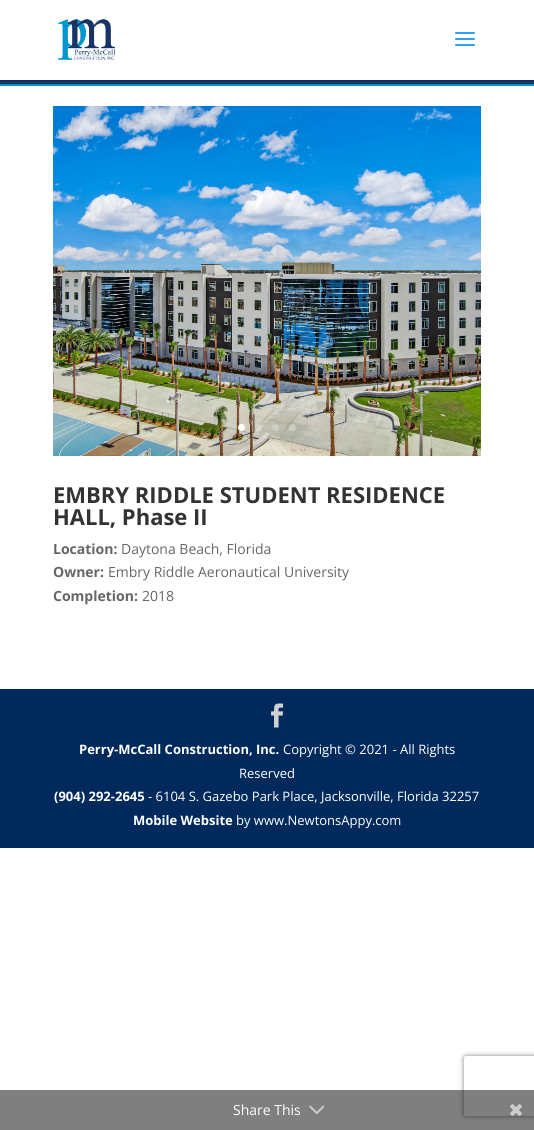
#include <cairo.h>
#include <math.h>
#include <stddef.h>

static cairo_t *ctx;

static void use_color(int r, int g, int b) {
    cairo_set_source_rgb(ctx, r / 255.0, g / 255.0, b / 255.0);
}

static void round_rect(double x, double y, double w, double h, double r) {
    cairo_new_sub_path(ctx);
    cairo_arc(ctx, x + w - r, y + h - r, r, 0, M_PI / 2);
    cairo_arc(ctx, x + r, y + h - r, r, M_PI / 2, M_PI);
    cairo_arc(ctx, x + r, y + r, r, M_PI, 1.5 * M_PI);
    cairo_arc(ctx, x + w - r, y + r, r, 1.5 * M_PI, 2 * M_PI);
    cairo_close_path(ctx);
}

static void shadow(double x, double y, double w, double h, double r, double blur, double alpha) {
    cairo_push_group_with_content(ctx, CAIRO_CONTENT_ALPHA);
    cairo_set_operator(ctx, CAIRO_OPERATOR_SOURCE);
    for (int i = 15; i >= -15 && fmin(w, h) + blur * i / 3 > 0; i -= 2) {
        double e = blur * i / 6;
        cairo_set_source_rgba(ctx, 0, 0, 0, alpha * erfc((i - 1) / 8.5) / 2);
        round_rect(x - e, y - e, w + 2 * e, h + 2 * e, fmax(0, fmin(r + e + blur * .6, fmin(w, h) / 2 + e)));
        cairo_fill(ctx);
    }
    cairo_pattern_t *soft = cairo_pop_group(ctx);
    cairo_mask(ctx, soft);
    cairo_pattern_destroy(soft);
}

static void picture(const char *path, double x, double y, double w, double h) {
    cairo_surface_t *image = cairo_image_surface_create_from_png(path);
    cairo_save(ctx);
    cairo_set_source_surface(ctx, image, x, y);
    cairo_rectangle(ctx, x, y, w, h);
    cairo_fill(ctx);
    cairo_restore(ctx);
    cairo_surface_destroy(image);
}

int main(void) {
    cairo_surface_t *surface = cairo_image_surface_create(CAIRO_FORMAT_RGB24, 534, 1130);
    ctx = cairo_create(surface);
    cairo_font_options_t *options = cairo_font_options_create();
    cairo_font_options_set_hint_metrics(options, CAIRO_HINT_METRICS_OFF);
    cairo_font_options_set_hint_style(options, CAIRO_HINT_STYLE_NONE);
    cairo_set_font_options(ctx, options);
    cairo_set_miter_limit(ctx, 4);
    use_color(255, 255, 255);
    cairo_paint(ctx);
    use_color(23, 46, 90);
    cairo_rectangle(ctx, 0, 80, 534, 1);
    cairo_fill(ctx);
    picture("img1.png", 57, 19, 59, 42);
    picture("img2.png", 455, 32, 20, 14);
    picture("img3.png", 0, 81, 534, 5);
    picture("img4.png", 53, 106, 428, 350);
    use_color(255, 255, 255);
    cairo_arc(ctx, 241.5, 427.5, 3.5, 0, 2 * M_PI);
    cairo_fill(ctx);
    cairo_set_source_rgba(ctx, 1, 1, 1, 0.25);
    cairo_arc(ctx, 258.5, 427.5, 3.5, 0, 2 * M_PI);
    cairo_fill(ctx);
    cairo_arc(ctx, 275.5, 427.5, 3.5, 0, 2 * M_PI);
    cairo_fill(ctx);
    cairo_arc(ctx, 292.5, 427.5, 3.5, 0, 2 * M_PI);
    cairo_fill(ctx);
    cairo_select_font_face(ctx, "Open Sans", CAIRO_FONT_SLANT_NORMAL, CAIRO_FONT_WEIGHT_BOLD);
    cairo_set_font_size(ctx, 22);
    use_color(51, 51, 51);
    cairo_move_to(ctx, 53, 503);
    cairo_show_text(ctx, "EMBRY RIDDLE STUDENT RESIDENCE");
    cairo_move_to(ctx, 53, 525);
    cairo_show_text(ctx, "HALL, Phase II");
    cairo_set_font_size(ctx, 14);
    use_color(102, 102, 102);
    cairo_move_to(ctx, 53, 554);
    cairo_show_text(ctx, "Location:");
    cairo_select_font_face(ctx, "Open Sans", CAIRO_FONT_SLANT_NORMAL, CAIRO_FONT_WEIGHT_NORMAL);
    cairo_move_to(ctx, 121, 554);
    cairo_show_text(ctx, "Daytona Beach, Florida");
    cairo_select_font_face(ctx, "Open Sans", CAIRO_FONT_SLANT_NORMAL, CAIRO_FONT_WEIGHT_BOLD);
    cairo_move_to(ctx, 53, 577);
    cairo_show_text(ctx, "Owner:");
    cairo_select_font_face(ctx, "Open Sans", CAIRO_FONT_SLANT_NORMAL, CAIRO_FONT_WEIGHT_NORMAL);
    cairo_move_to(ctx, 108, 577);
    cairo_show_text(ctx, "Embry Riddle Aeronautical University");
    cairo_select_font_face(ctx, "Open Sans", CAIRO_FONT_SLANT_NORMAL, CAIRO_FONT_WEIGHT_BOLD);
    cairo_move_to(ctx, 53, 601);
    cairo_show_text(ctx, "Completion:");
    cairo_select_font_face(ctx, "Open Sans", CAIRO_FONT_SLANT_NORMAL, CAIRO_FONT_WEIGHT_NORMAL);
    cairo_move_to(ctx, 142, 601);
    cairo_show_text(ctx, "2018");
    use_color(0, 42, 92);
    cairo_rectangle(ctx, 0, 689, 534, 159);
    cairo_fill(ctx);
    picture("img5.png", 271, 703, 13, 25);
    cairo_select_font_face(ctx, "Open Sans", CAIRO_FONT_SLANT_NORMAL, CAIRO_FONT_WEIGHT_BOLD);
    cairo_set_font_size(ctx, 13);
    use_color(255, 255, 255);
    cairo_move_to(ctx, 79, 754);
    cairo_show_text(ctx, "Perry-McCall Construction, Inc.");
    cairo_select_font_face(ctx, "Open Sans", CAIRO_FONT_SLANT_NORMAL, CAIRO_FONT_WEIGHT_NORMAL);
    cairo_move_to(ctx, 283, 754);
    cairo_show_text(ctx, "Copyright © 2021 - All Rights");
    cairo_move_to(ctx, 239, 778);
    cairo_show_text(ctx, "Reserved");
    cairo_select_font_face(ctx, "Open Sans", CAIRO_FONT_SLANT_NORMAL, CAIRO_FONT_WEIGHT_BOLD);
    cairo_move_to(ctx, 54, 801);
    cairo_show_text(ctx, "(904) 292-2645");
    cairo_select_font_face(ctx, "Open Sans", CAIRO_FONT_SLANT_NORMAL, CAIRO_FONT_WEIGHT_NORMAL);
    cairo_move_to(ctx, 148, 801);
    cairo_show_text(ctx, "- 6104 S. Gazebo Park Place, Jacksonville, Florida 32257");
    cairo_select_font_face(ctx, "Open Sans", CAIRO_FONT_SLANT_NORMAL, CAIRO_FONT_WEIGHT_BOLD);
    cairo_move_to(ctx, 133, 825);
    cairo_show_text(ctx, "Mobile Website");
    cairo_select_font_face(ctx, "Open Sans", CAIRO_FONT_SLANT_NORMAL, CAIRO_FONT_WEIGHT_NORMAL);
    cairo_move_to(ctx, 236, 825);
    cairo_show_text(ctx, "by www.NewtonsAppy.com");
    cairo_save(ctx);
    cairo_set_fill_rule(ctx, CAIRO_FILL_RULE_EVEN_ODD);
    cairo_new_path(ctx);
    cairo_move_to(ctx, 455, 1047);
    cairo_line_to(ctx, 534, 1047);
    cairo_line_to(ctx, 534, 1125);
    cairo_line_to(ctx, 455, 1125);
    cairo_close_path(ctx);
    cairo_move_to(ctx, 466, 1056);
    cairo_line_to(ctx, 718, 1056);
    cairo_curve_to(ctx, 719, 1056, 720, 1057, 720, 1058);
    cairo_line_to(ctx, 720, 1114);
    cairo_curve_to(ctx, 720, 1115, 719, 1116, 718, 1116);
    cairo_line_to(ctx, 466, 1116);
    cairo_curve_to(ctx, 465, 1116, 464, 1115, 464, 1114);
    cairo_line_to(ctx, 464, 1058);
    cairo_curve_to(ctx, 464, 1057, 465, 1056, 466, 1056);
    cairo_close_path(ctx);
    cairo_clip(ctx);
    use_color(128, 128, 128);
    shadow(464, 1056, 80, 60, 2, 2.5, 1);
    cairo_restore(ctx);
    cairo_set_source_rgba(ctx, 0, 0, 0, 0.5);
    cairo_rectangle(ctx, 0, 1090, 534, 40);
    cairo_fill(ctx);
    cairo_set_font_size(ctx, 14);
    use_color(255, 255, 255);
    cairo_move_to(ctx, 233, 1115);
    cairo_show_text(ctx, "Share This");
    picture("img6.png", 309, 1105, 16, 9);
    picture("img7.png", 510, 1104, 12, 12);
    cairo_surface_write_to_png(surface, "result.png");
    cairo_font_options_destroy(options);
    cairo_destroy(ctx);
    cairo_surface_destroy(surface);
    return 0;
}
